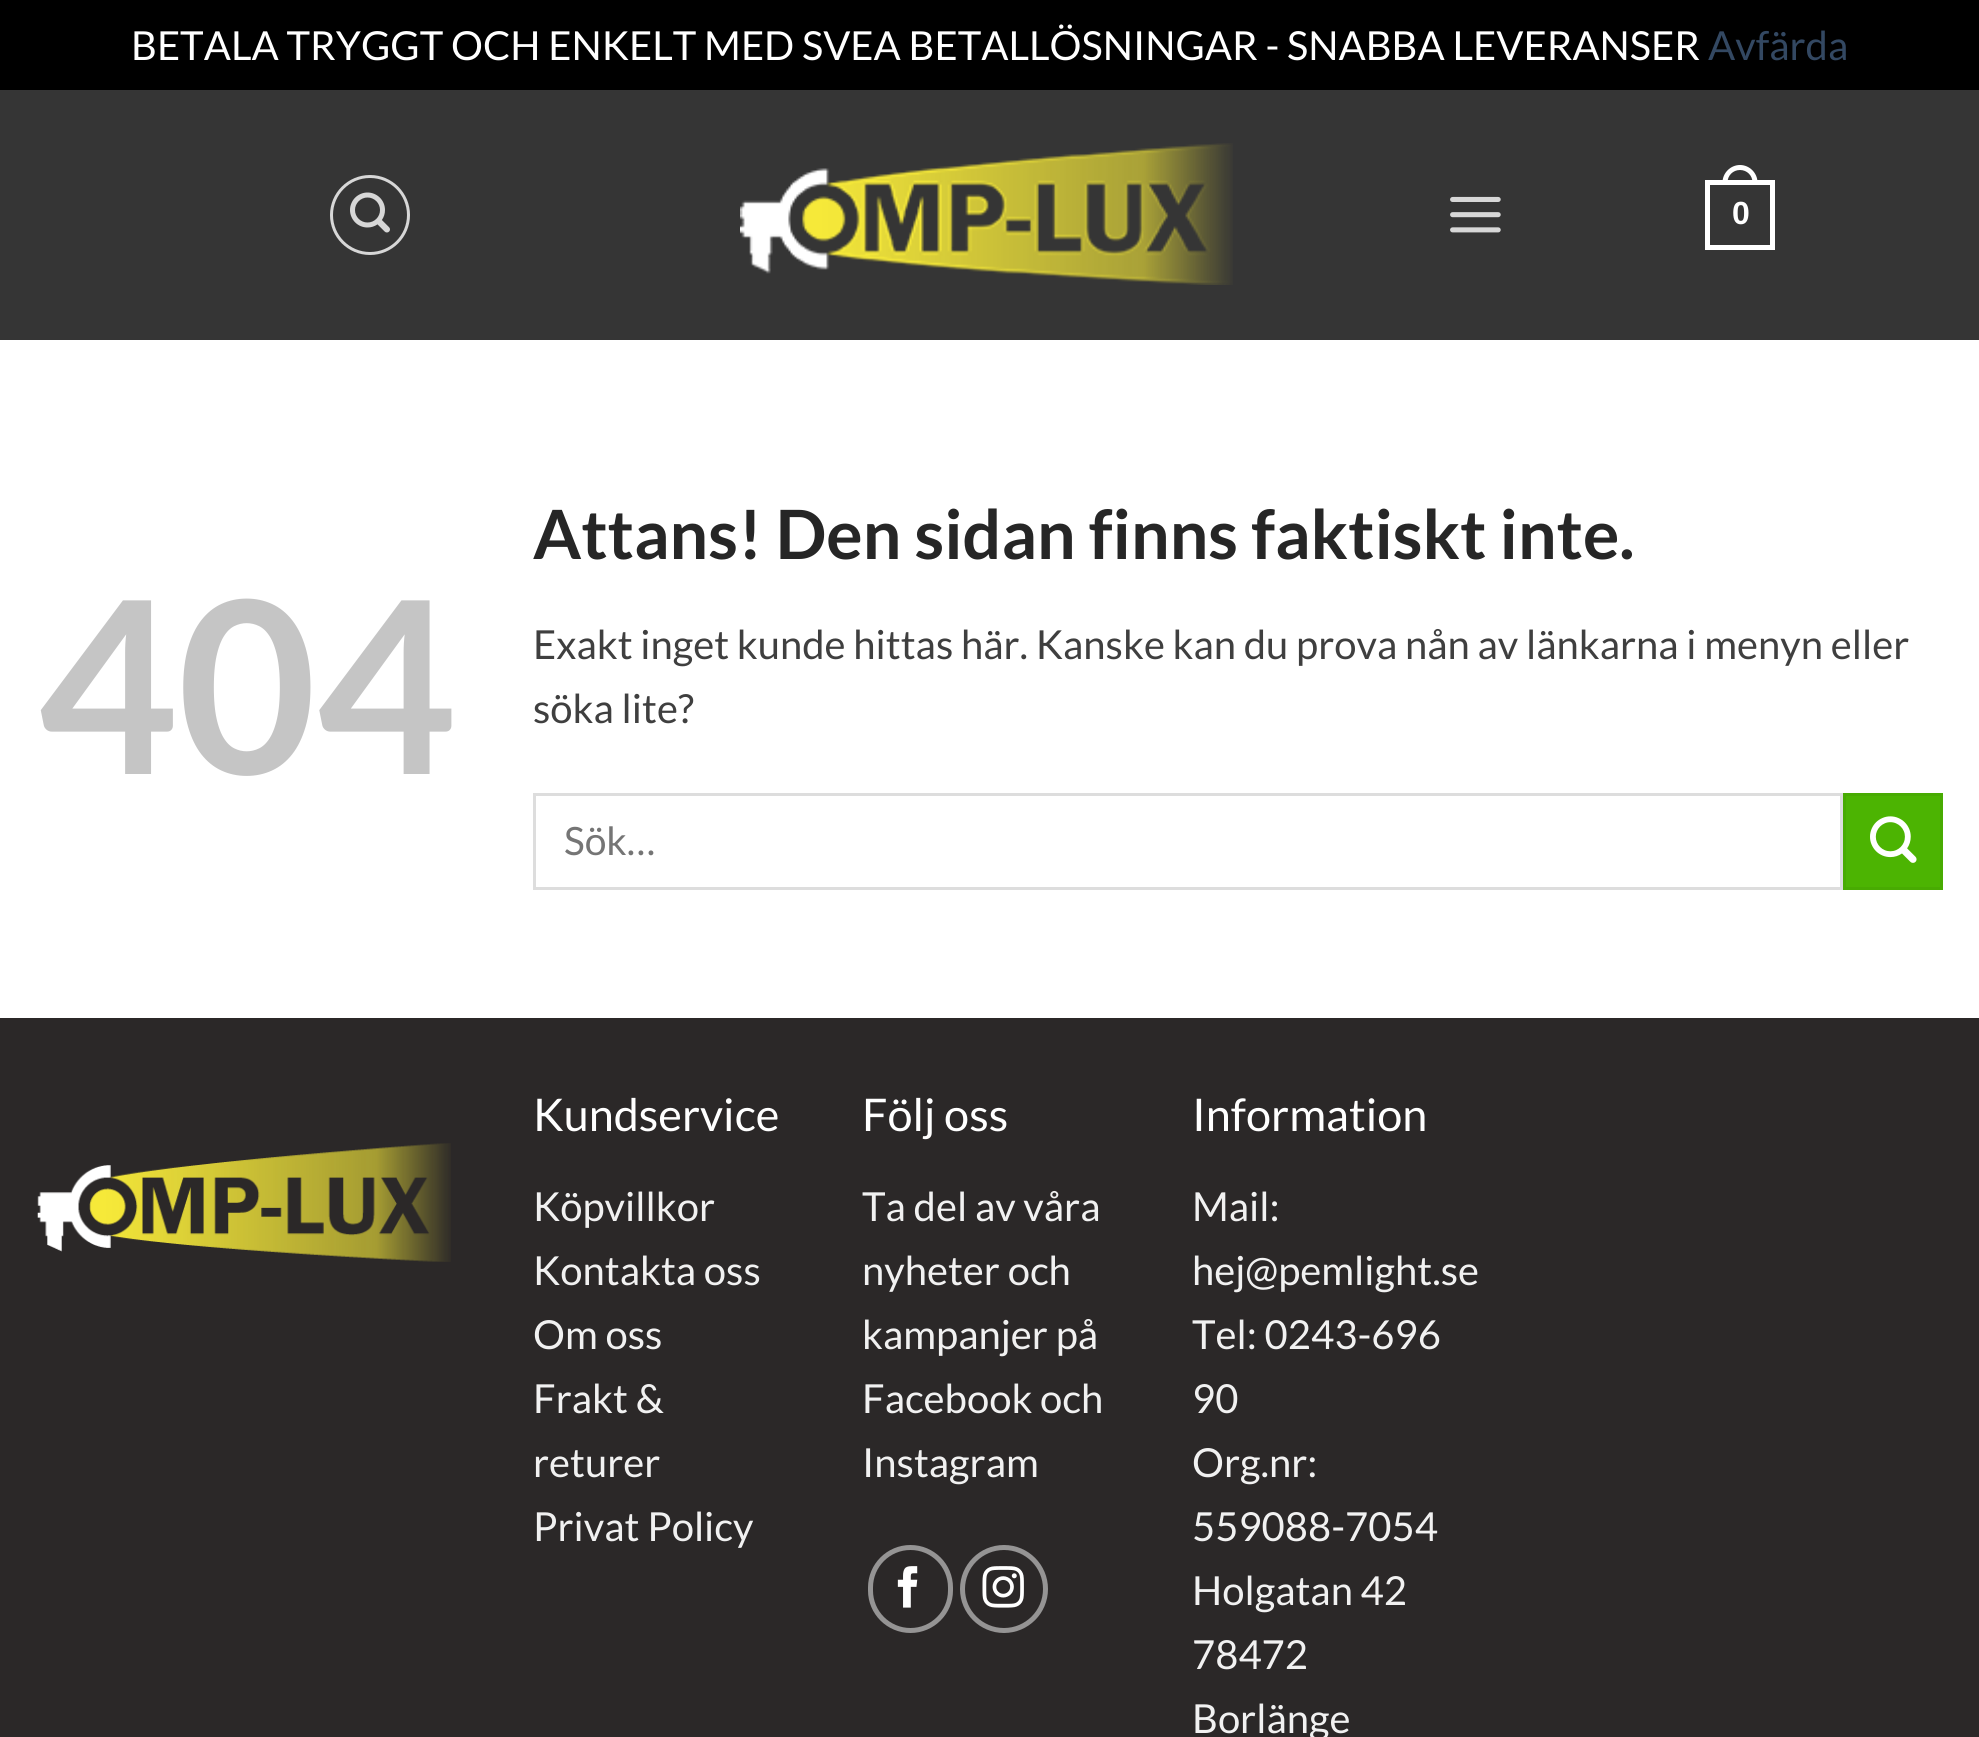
#include <cairo.h>
#include <math.h>
#include <stddef.h>

static cairo_t *ctx;

static void use_color(int r, int g, int b) {
    cairo_set_source_rgb(ctx, r / 255.0, g / 255.0, b / 255.0);
}

static void round_rect(double x, double y, double w, double h, double r) {
    cairo_new_sub_path(ctx);
    cairo_arc(ctx, x + w - r, y + h - r, r, 0, M_PI / 2);
    cairo_arc(ctx, x + r, y + h - r, r, M_PI / 2, M_PI);
    cairo_arc(ctx, x + r, y + r, r, M_PI, 1.5 * M_PI);
    cairo_arc(ctx, x + w - r, y + r, r, 1.5 * M_PI, 2 * M_PI);
    cairo_close_path(ctx);
}

static void picture(const char *path, double x, double y, double w, double h) {
    cairo_surface_t *image = cairo_image_surface_create_from_png(path);
    cairo_save(ctx);
    cairo_set_source_surface(ctx, image, x, y);
    cairo_rectangle(ctx, x, y, w, h);
    cairo_fill(ctx);
    cairo_restore(ctx);
    cairo_surface_destroy(image);
}

int main(void) {
    cairo_surface_t *surface = cairo_image_surface_create(CAIRO_FORMAT_RGB24, 1979, 1737);
    ctx = cairo_create(surface);
    cairo_font_options_t *options = cairo_font_options_create();
    cairo_font_options_set_hint_metrics(options, CAIRO_HINT_METRICS_OFF);
    cairo_font_options_set_hint_style(options, CAIRO_HINT_STYLE_NONE);
    cairo_set_font_options(ctx, options);
    cairo_set_miter_limit(ctx, 4);
    use_color(0, 0, 0);
    cairo_paint(ctx);
    cairo_select_font_face(ctx, "Lato", CAIRO_FONT_SLANT_NORMAL, CAIRO_FONT_WEIGHT_NORMAL);
    cairo_set_font_size(ctx, 40);
    use_color(255, 255, 255);
    cairo_move_to(ctx, 131, 60);
    cairo_show_text(ctx, "BETALA TRYGGT OCH ENKELT MED SVEA BETALLÖSNINGAR - SNABBA LEVERANSER");
    use_color(51, 72, 98);
    cairo_move_to(ctx, 1708, 60);
    cairo_show_text(ctx, "Avfärda");
    use_color(255, 255, 255);
    cairo_rectangle(ctx, 0, 340, 1979, 678);
    cairo_fill(ctx);
    use_color(53, 53, 53);
    cairo_rectangle(ctx, 0, 90, 1979, 250);
    cairo_fill(ctx);
    cairo_arc(ctx, 370, 215, 38.5, 0, 2 * M_PI);
    use_color(215, 215, 215);
    cairo_set_line_width(ctx, 3);
    cairo_stroke(ctx);
    picture("img1.png", 350, 192, 40, 41);
    picture("img2.png", 740, 143, 493, 142);
    picture("img3.png", 1450, 196, 51, 37);
    cairo_rectangle(ctx, 1707.5, 182.5, 65, 65);
    use_color(255, 255, 255);
    cairo_set_line_width(ctx, 5);
    cairo_stroke(ctx);
    cairo_set_fill_rule(ctx, CAIRO_FILL_RULE_EVEN_ODD);
    cairo_new_path(ctx);
    cairo_move_to(ctx, 1740, 165);
    cairo_curve_to(ctx, 1749.5, 165, 1757.5, 173, 1757.5, 182.5);
    cairo_line_to(ctx, 1757.5, 185);
    cairo_line_to(ctx, 1722.5, 185);
    cairo_line_to(ctx, 1722.5, 182.5);
    cairo_curve_to(ctx, 1722.5, 173, 1730.5, 165, 1740, 165);
    cairo_close_path(ctx);
    cairo_move_to(ctx, 1740, 170);
    cairo_curve_to(ctx, 1747, 170, 1752.5, 175.5, 1752.5, 182.5);
    cairo_line_to(ctx, 1752.5, 185);
    cairo_line_to(ctx, 1727.5, 185);
    cairo_line_to(ctx, 1727.5, 182.5);
    cairo_curve_to(ctx, 1727.5, 175.5, 1733, 170, 1740, 170);
    cairo_close_path(ctx);
    cairo_fill(ctx);
    cairo_select_font_face(ctx, "Liberation Sans", CAIRO_FONT_SLANT_NORMAL, CAIRO_FONT_WEIGHT_BOLD);
    cairo_set_font_size(ctx, 32);
    cairo_move_to(ctx, 1732, 224);
    cairo_show_text(ctx, "0");
    cairo_select_font_face(ctx, "Lato", CAIRO_FONT_SLANT_NORMAL, CAIRO_FONT_WEIGHT_BOLD);
    cairo_set_font_size(ctx, 240);
    use_color(197, 197, 197);
    cairo_move_to(ctx, 38, 774);
    cairo_show_text(ctx, "404");
    cairo_set_font_size(ctx, 68);
    use_color(38, 38, 38);
    cairo_move_to(ctx, 533, 559);
    cairo_show_text(ctx, "Attans! Den sidan finns faktiskt inte.");
    cairo_select_font_face(ctx, "Lato", CAIRO_FONT_SLANT_NORMAL, CAIRO_FONT_WEIGHT_NORMAL);
    cairo_set_font_size(ctx, 40);
    use_color(63, 63, 63);
    cairo_move_to(ctx, 533, 659);
    cairo_show_text(ctx, "Exakt inget kunde hittas här. Kanske kan du prova nån av länkarna i menyn eller");
    cairo_move_to(ctx, 533, 723);
    cairo_show_text(ctx, "söka lite?");
    cairo_rectangle(ctx, 534.5, 794.5, 1307, 94);
    use_color(221, 221, 221);
    cairo_set_line_width(ctx, 3);
    cairo_stroke(ctx);
    cairo_set_font_size(ctx, 39);
    use_color(117, 117, 117);
    cairo_move_to(ctx, 564, 855);
    cairo_show_text(ctx, "Sök…");
    use_color(76, 180, 2);
    cairo_rectangle(ctx, 1844.5, 794.5, 97, 94);
    cairo_fill_preserve(ctx);
    use_color(72, 171, 2);
    cairo_stroke(ctx);
    picture("img4.png", 1870, 816, 47, 47);
    use_color(43, 40, 40);
    cairo_rectangle(ctx, 0, 1018, 1979, 719);
    cairo_fill(ctx);
    picture("img5.png", 37, 1143, 414, 119);
    cairo_set_font_size(ctx, 45);
    use_color(255, 255, 255);
    cairo_move_to(ctx, 533, 1131);
    cairo_show_text(ctx, "Kundservice");
    cairo_set_font_size(ctx, 40);
    use_color(241, 241, 241);
    cairo_move_to(ctx, 533, 1221);
    cairo_show_text(ctx, "Köpvillkor");
    cairo_move_to(ctx, 533, 1285);
    cairo_show_text(ctx, "Kontakta oss");
    cairo_move_to(ctx, 533, 1349);
    cairo_show_text(ctx, "Om oss");
    cairo_move_to(ctx, 533, 1413);
    cairo_show_text(ctx, "Frakt &");
    cairo_move_to(ctx, 533, 1477);
    cairo_show_text(ctx, "returer");
    cairo_move_to(ctx, 533, 1541);
    cairo_show_text(ctx, "Privat Policy");
    cairo_set_font_size(ctx, 45);
    use_color(255, 255, 255);
    cairo_move_to(ctx, 862, 1131);
    cairo_show_text(ctx, "Följ oss");
    cairo_set_font_size(ctx, 40);
    use_color(241, 241, 241);
    cairo_move_to(ctx, 862, 1221);
    cairo_show_text(ctx, "Ta del av våra");
    cairo_move_to(ctx, 862, 1285);
    cairo_show_text(ctx, "nyheter och");
    cairo_move_to(ctx, 862, 1349);
    cairo_show_text(ctx, "kampanjer på");
    cairo_move_to(ctx, 862, 1413);
    cairo_show_text(ctx, "Facebook och");
    cairo_move_to(ctx, 862, 1477);
    cairo_show_text(ctx, "Instagram");
    round_rect(870.5, 1547.5, 80, 83, 40);
    use_color(149, 148, 148);
    cairo_set_line_width(ctx, 5);
    cairo_stroke(ctx);
    picture("img6.png", 897, 1566, 21, 42);
    cairo_arc(ctx, 1004, 1589, 41.5, 0, 2 * M_PI);
    cairo_stroke(ctx);
    picture("img7.png", 982, 1566, 42, 42);
    cairo_set_font_size(ctx, 45);
    use_color(255, 255, 255);
    cairo_move_to(ctx, 1192, 1131);
    cairo_show_text(ctx, "Information");
    cairo_set_font_size(ctx, 40);
    use_color(241, 241, 241);
    cairo_move_to(ctx, 1192, 1221);
    cairo_show_text(ctx, "Mail:");
    cairo_move_to(ctx, 1192, 1285);
    cairo_show_text(ctx, "hej@pemlight.se");
    cairo_move_to(ctx, 1192, 1349);
    cairo_show_text(ctx, "Tel: 0243-696");
    cairo_move_to(ctx, 1192, 1413);
    cairo_show_text(ctx, "90");
    cairo_move_to(ctx, 1192, 1477);
    cairo_show_text(ctx, "Org.nr:");
    cairo_move_to(ctx, 1192, 1541);
    cairo_show_text(ctx, "559088-7054");
    cairo_move_to(ctx, 1192, 1605);
    cairo_show_text(ctx, "Holgatan 42");
    cairo_move_to(ctx, 1192, 1669);
    cairo_show_text(ctx, "78472");
    cairo_move_to(ctx, 1192, 1733);
    cairo_show_text(ctx, "Borlänge");
    cairo_surface_write_to_png(surface, "result.png");
    cairo_font_options_destroy(options);
    cairo_destroy(ctx);
    cairo_surface_destroy(surface);
    return 0;
}
